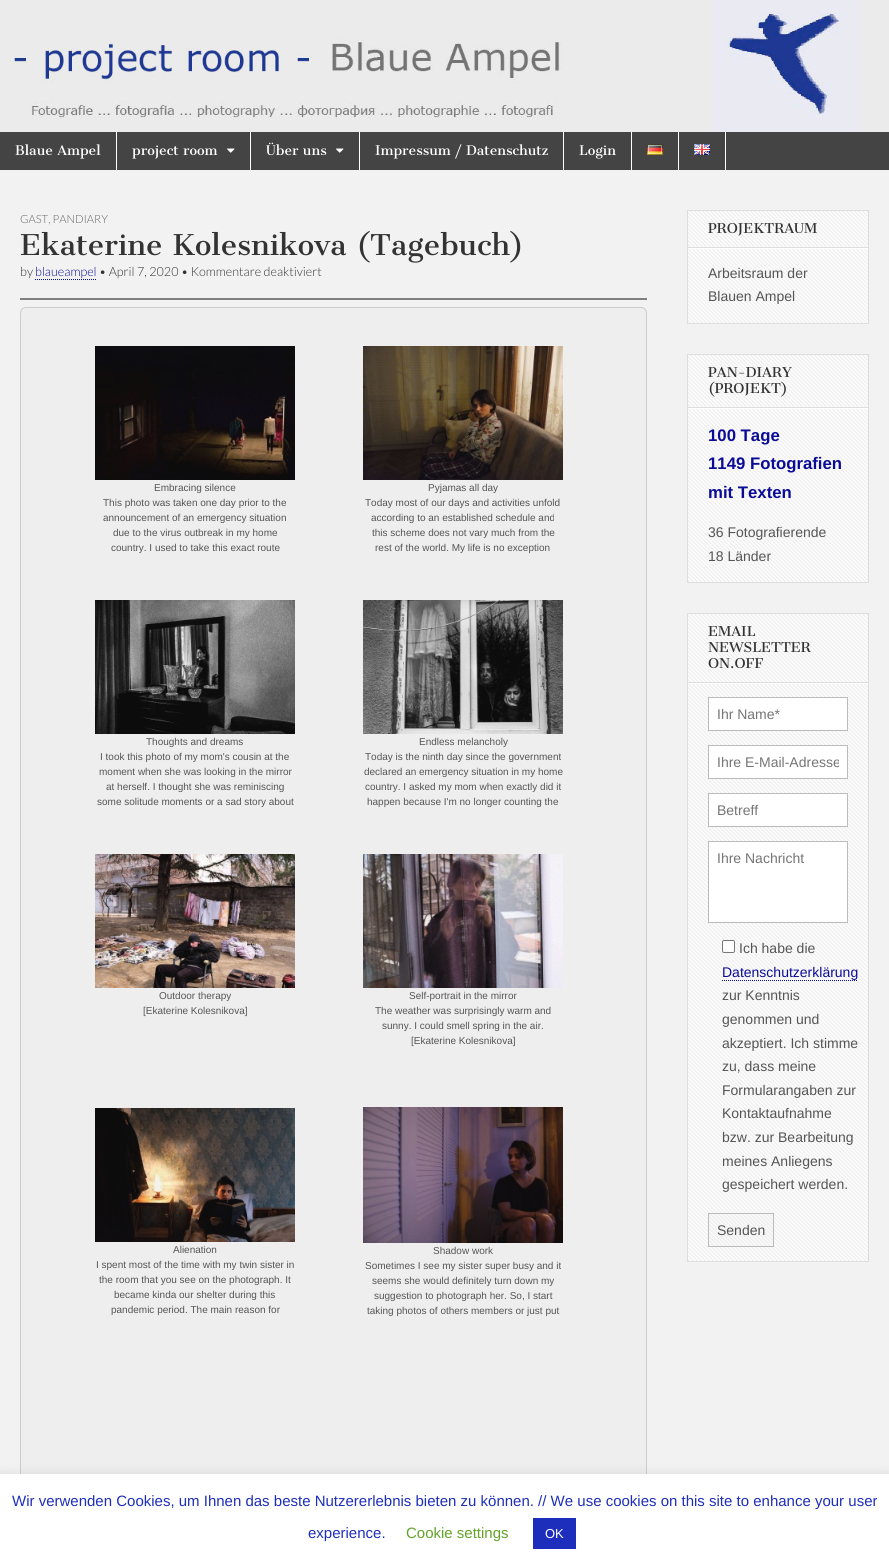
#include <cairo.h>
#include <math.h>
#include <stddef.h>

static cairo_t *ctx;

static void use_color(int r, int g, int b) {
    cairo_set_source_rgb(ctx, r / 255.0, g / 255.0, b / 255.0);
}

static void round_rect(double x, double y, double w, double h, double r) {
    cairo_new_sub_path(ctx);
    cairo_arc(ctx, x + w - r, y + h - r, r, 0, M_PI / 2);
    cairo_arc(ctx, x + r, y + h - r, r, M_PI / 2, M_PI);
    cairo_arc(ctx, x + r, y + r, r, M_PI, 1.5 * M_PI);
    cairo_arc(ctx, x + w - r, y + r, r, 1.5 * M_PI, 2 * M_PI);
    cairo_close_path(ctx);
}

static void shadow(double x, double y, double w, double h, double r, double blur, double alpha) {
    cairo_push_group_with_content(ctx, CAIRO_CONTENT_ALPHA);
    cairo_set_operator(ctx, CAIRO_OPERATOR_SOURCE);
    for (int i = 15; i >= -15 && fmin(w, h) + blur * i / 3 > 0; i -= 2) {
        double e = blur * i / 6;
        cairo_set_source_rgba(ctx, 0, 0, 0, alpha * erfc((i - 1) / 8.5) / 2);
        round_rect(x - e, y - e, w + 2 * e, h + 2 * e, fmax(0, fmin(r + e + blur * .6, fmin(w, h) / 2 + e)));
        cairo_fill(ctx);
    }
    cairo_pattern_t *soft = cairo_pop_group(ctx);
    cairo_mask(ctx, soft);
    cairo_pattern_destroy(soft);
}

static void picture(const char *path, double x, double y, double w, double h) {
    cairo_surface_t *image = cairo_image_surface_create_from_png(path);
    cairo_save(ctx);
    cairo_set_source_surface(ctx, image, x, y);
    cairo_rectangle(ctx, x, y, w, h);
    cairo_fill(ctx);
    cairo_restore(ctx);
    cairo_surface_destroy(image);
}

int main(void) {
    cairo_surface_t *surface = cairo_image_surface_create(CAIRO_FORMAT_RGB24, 889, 1566);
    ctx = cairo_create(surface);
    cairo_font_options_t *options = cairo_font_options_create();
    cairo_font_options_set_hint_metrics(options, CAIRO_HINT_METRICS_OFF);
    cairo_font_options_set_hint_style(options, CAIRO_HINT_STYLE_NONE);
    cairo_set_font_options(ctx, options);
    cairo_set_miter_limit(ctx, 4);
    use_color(242, 242, 242);
    cairo_paint(ctx);
    picture("img1.png", 0, 0, 889, 132);
    use_color(68, 68, 68);
    cairo_rectangle(ctx, 0, 132, 889, 38);
    cairo_fill(ctx);
    use_color(255, 255, 255);
    cairo_rectangle(ctx, 116, 132, 1, 38);
    cairo_fill(ctx);
    cairo_select_font_face(ctx, "Cantata One", CAIRO_FONT_SLANT_NORMAL, CAIRO_FONT_WEIGHT_NORMAL);
    cairo_set_font_size(ctx, 13);
    cairo_move_to(ctx, 15, 155);
    cairo_show_text(ctx, "Blaue Ampel");
    cairo_rectangle(ctx, 250, 132, 1, 38);
    cairo_fill(ctx);
    cairo_move_to(ctx, 132, 155);
    cairo_show_text(ctx, "project room");
    picture("img2.png", 227, 148, 8, 5);
    cairo_rectangle(ctx, 359, 132, 1, 38);
    cairo_fill(ctx);
    cairo_move_to(ctx, 266, 155);
    cairo_show_text(ctx, "Über uns");
    picture("img2.png", 336, 148, 8, 5);
    cairo_rectangle(ctx, 563, 132, 1, 38);
    cairo_fill(ctx);
    cairo_move_to(ctx, 375, 155);
    cairo_show_text(ctx, "Impressum / Datenschutz");
    cairo_rectangle(ctx, 631, 132, 1, 38);
    cairo_fill(ctx);
    cairo_move_to(ctx, 579, 155);
    cairo_show_text(ctx, "Login");
    cairo_rectangle(ctx, 678, 132, 1, 38);
    cairo_fill(ctx);
    picture("img3.png", 647, 144, 16, 11);
    cairo_rectangle(ctx, 725, 132, 1, 38);
    cairo_fill(ctx);
    picture("img4.png", 694, 144, 16, 11);
    cairo_select_font_face(ctx, "Lato Light", CAIRO_FONT_SLANT_NORMAL, CAIRO_FONT_WEIGHT_NORMAL);
    cairo_set_font_size(ctx, 11.25);
    use_color(102, 102, 102);
    cairo_move_to(ctx, 20, 223);
    cairo_show_text(ctx, "GAST, PANDIARY");
    cairo_select_font_face(ctx, "Cantata One", CAIRO_FONT_SLANT_NORMAL, CAIRO_FONT_WEIGHT_NORMAL);
    cairo_set_font_size(ctx, 28);
    use_color(51, 51, 51);
    cairo_move_to(ctx, 20, 255);
    cairo_show_text(ctx, "Ekaterine Kolesnikova (Tagebuch)");
    cairo_select_font_face(ctx, "Lato Light", CAIRO_FONT_SLANT_NORMAL, CAIRO_FONT_WEIGHT_NORMAL);
    cairo_set_font_size(ctx, 12.6);
    cairo_move_to(ctx, 20, 276);
    cairo_show_text(ctx, "by");
    use_color(10, 12, 150);
    cairo_move_to(ctx, 35, 276);
    cairo_show_text(ctx, "blaueampel");
    cairo_new_path(ctx);
    cairo_move_to(ctx, 35, 279.5);
    cairo_line_to(ctx, 97, 279.5);
    cairo_set_line_width(ctx, 1);
    cairo_set_dash(ctx, (double[]){1, 1}, 2, 0);
    cairo_stroke(ctx);
    use_color(51, 51, 51);
    cairo_move_to(ctx, 99, 276);
    cairo_show_text(ctx, "• April 7, 2020 • Kommentare deaktiviert");
    use_color(128, 128, 128);
    cairo_rectangle(ctx, 20, 298, 627, 2);
    cairo_fill(ctx);
    use_color(238, 238, 238);
    round_rect(20.5, 307.5, 626, 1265, 5.5);
    cairo_fill_preserve(ctx);
    use_color(204, 204, 204);
    cairo_set_dash(ctx, NULL, 0, 0);
    cairo_stroke(ctx);
    picture("img5.png", 95, 346, 200, 134);
    cairo_select_font_face(ctx, "Liberation Sans", CAIRO_FONT_SLANT_NORMAL, CAIRO_FONT_WEIGHT_NORMAL);
    cairo_set_font_size(ctx, 10);
    use_color(85, 85, 85);
    cairo_move_to(ctx, 154, 491);
    cairo_show_text(ctx, "Embracing silence");
    cairo_move_to(ctx, 103, 506);
    cairo_show_text(ctx, "This photo was taken one day prior to the");
    cairo_move_to(ctx, 103, 521);
    cairo_show_text(ctx, "announcement of an emergency situation");
    cairo_move_to(ctx, 113, 536);
    cairo_show_text(ctx, "due to the virus outbreak in my home");
    cairo_move_to(ctx, 111, 551);
    cairo_show_text(ctx, "country. I used to take this exact route");
    picture("img6.png", 363, 346, 200, 134);
    cairo_move_to(ctx, 428, 491);
    cairo_show_text(ctx, "Pyjamas all day");
    cairo_move_to(ctx, 365, 506);
    cairo_show_text(ctx, "Today most of our days and activities unfold");
    cairo_move_to(ctx, 371, 521);
    cairo_show_text(ctx, "according to an established schedule and");
    cairo_move_to(ctx, 372, 536);
    cairo_show_text(ctx, "this scheme does not vary much from the");
    cairo_move_to(ctx, 375, 551);
    cairo_show_text(ctx, "rest of the world. My life is no exception");
    picture("img7.png", 95, 600, 200, 134);
    cairo_move_to(ctx, 146, 745);
    cairo_show_text(ctx, "Thoughts and dreams");
    cairo_move_to(ctx, 100, 760);
    cairo_show_text(ctx, "I took this photo of my mom's cousin at the");
    cairo_move_to(ctx, 99, 775);
    cairo_show_text(ctx, "moment when she was looking in the mirror");
    cairo_move_to(ctx, 106, 790);
    cairo_show_text(ctx, "at herself. I thought she was reminiscing");
    cairo_move_to(ctx, 97, 805);
    cairo_show_text(ctx, "some solitude moments or a sad story about");
    picture("img8.png", 363, 600, 200, 134);
    cairo_move_to(ctx, 419, 745);
    cairo_show_text(ctx, "Endless melancholy");
    cairo_move_to(ctx, 365, 760);
    cairo_show_text(ctx, "Today is the ninth day since the government");
    cairo_move_to(ctx, 364, 775);
    cairo_show_text(ctx, "declared an emergency situation in my home");
    cairo_move_to(ctx, 365, 790);
    cairo_show_text(ctx, "country. I asked my mom when exactly did it");
    cairo_move_to(ctx, 367, 805);
    cairo_show_text(ctx, "happen because I'm no longer counting the");
    picture("img9.png", 95, 854, 200, 134);
    cairo_move_to(ctx, 159, 999);
    cairo_show_text(ctx, "Outdoor therapy");
    cairo_move_to(ctx, 143, 1014);
    cairo_show_text(ctx, "[Ekaterine Kolesnikova]");
    picture("img10.png", 363, 854, 200, 134);
    cairo_move_to(ctx, 409, 999);
    cairo_show_text(ctx, "Self-portrait in the mirror");
    cairo_move_to(ctx, 375, 1014);
    cairo_show_text(ctx, "The weather was surprisingly warm and");
    cairo_move_to(ctx, 382, 1029);
    cairo_show_text(ctx, "sunny. I could smell spring in the air.");
    cairo_move_to(ctx, 411, 1044);
    cairo_show_text(ctx, "[Ekaterine Kolesnikova]");
    picture("img11.png", 95, 1108, 200, 134);
    cairo_move_to(ctx, 173, 1253);
    cairo_show_text(ctx, "Alienation");
    cairo_move_to(ctx, 96, 1268);
    cairo_show_text(ctx, "I spent most of the time with my twin sister in");
    cairo_move_to(ctx, 99, 1283);
    cairo_show_text(ctx, "the room that you see on the photograph. It");
    cairo_move_to(ctx, 114, 1298);
    cairo_show_text(ctx, "became kinda our shelter during this");
    cairo_move_to(ctx, 111, 1313);
    cairo_show_text(ctx, "pandemic period. The main reason for");
    picture("img12.png", 363, 1107, 200, 136);
    cairo_move_to(ctx, 433, 1254);
    cairo_show_text(ctx, "Shadow work");
    cairo_move_to(ctx, 365, 1269);
    cairo_show_text(ctx, "Sometimes I see my sister super busy and it");
    cairo_move_to(ctx, 372, 1284);
    cairo_show_text(ctx, "seems she would definitely turn down my");
    cairo_move_to(ctx, 374, 1299);
    cairo_show_text(ctx, "suggestion to photograph her. So, I start");
    cairo_move_to(ctx, 367, 1314);
    cairo_show_text(ctx, "taking photos of others members or just put");
    picture("img13.png", 688, 211, 180, 112);
    cairo_rectangle(ctx, 687.5, 210.5, 181, 113);
    use_color(221, 221, 221);
    cairo_stroke(ctx);
    use_color(255, 255, 255);
    cairo_rectangle(ctx, 688, 248, 180, 1);
    cairo_fill(ctx);
    use_color(221, 221, 221);
    cairo_rectangle(ctx, 688, 247, 180, 1);
    cairo_fill(ctx);
    cairo_select_font_face(ctx, "Cantata One", CAIRO_FONT_SLANT_NORMAL, CAIRO_FONT_WEIGHT_NORMAL);
    cairo_set_font_size(ctx, 13.25);
    use_color(51, 51, 51);
    cairo_move_to(ctx, 708, 233);
    cairo_show_text(ctx, "PROJEKTRAUM");
    cairo_select_font_face(ctx, "Liberation Sans", CAIRO_FONT_SLANT_NORMAL, CAIRO_FONT_WEIGHT_NORMAL);
    cairo_set_font_size(ctx, 14);
    use_color(85, 85, 85);
    cairo_move_to(ctx, 708, 278);
    cairo_show_text(ctx, "Arbeitsraum der");
    cairo_move_to(ctx, 708, 301);
    cairo_show_text(ctx, "Blauen Ampel");
    picture("img14.png", 688, 355, 180, 227);
    cairo_rectangle(ctx, 687.5, 354.5, 181, 228);
    use_color(221, 221, 221);
    cairo_stroke(ctx);
    use_color(255, 255, 255);
    cairo_rectangle(ctx, 688, 408, 180, 1);
    cairo_fill(ctx);
    use_color(221, 221, 221);
    cairo_rectangle(ctx, 688, 407, 180, 1);
    cairo_fill(ctx);
    cairo_select_font_face(ctx, "Cantata One", CAIRO_FONT_SLANT_NORMAL, CAIRO_FONT_WEIGHT_NORMAL);
    cairo_set_font_size(ctx, 13.25);
    use_color(51, 51, 51);
    cairo_move_to(ctx, 708, 377);
    cairo_show_text(ctx, "PAN-DIARY");
    cairo_move_to(ctx, 708, 393);
    cairo_show_text(ctx, "(PROJEKT)");
    cairo_select_font_face(ctx, "Liberation Sans", CAIRO_FONT_SLANT_NORMAL, CAIRO_FONT_WEIGHT_BOLD);
    cairo_set_font_size(ctx, 16.75);
    use_color(10, 12, 150);
    cairo_move_to(ctx, 708, 441);
    cairo_show_text(ctx, "100 Tage");
    cairo_move_to(ctx, 708, 469);
    cairo_show_text(ctx, "1149 Fotografien");
    cairo_move_to(ctx, 708, 498);
    cairo_show_text(ctx, "mit Texten");
    cairo_select_font_face(ctx, "Liberation Sans", CAIRO_FONT_SLANT_NORMAL, CAIRO_FONT_WEIGHT_NORMAL);
    cairo_set_font_size(ctx, 14);
    use_color(85, 85, 85);
    cairo_move_to(ctx, 708, 537);
    cairo_show_text(ctx, "36 Fotografierende");
    cairo_move_to(ctx, 708, 561);
    cairo_show_text(ctx, "18 Länder");
    picture("img15.png", 688, 614, 180, 647);
    cairo_rectangle(ctx, 687.5, 613.5, 181, 648);
    use_color(221, 221, 221);
    cairo_stroke(ctx);
    use_color(255, 255, 255);
    cairo_rectangle(ctx, 688, 683, 180, 1);
    cairo_fill(ctx);
    use_color(221, 221, 221);
    cairo_rectangle(ctx, 688, 682, 180, 1);
    cairo_fill(ctx);
    cairo_select_font_face(ctx, "Cantata One", CAIRO_FONT_SLANT_NORMAL, CAIRO_FONT_WEIGHT_NORMAL);
    cairo_set_font_size(ctx, 13.25);
    use_color(51, 51, 51);
    cairo_move_to(ctx, 708, 636);
    cairo_show_text(ctx, "EMAIL");
    cairo_move_to(ctx, 708, 652);
    cairo_show_text(ctx, "NEWSLETTER");
    cairo_move_to(ctx, 708, 668);
    cairo_show_text(ctx, "ON.OFF");
    use_color(255, 255, 255);
    cairo_rectangle(ctx, 708.5, 697.5, 139, 33);
    cairo_fill_preserve(ctx);
    use_color(187, 187, 187);
    cairo_stroke(ctx);
    cairo_select_font_face(ctx, "Liberation Sans", CAIRO_FONT_SLANT_NORMAL, CAIRO_FONT_WEIGHT_NORMAL);
    cairo_set_font_size(ctx, 14);
    use_color(117, 117, 117);
    cairo_move_to(ctx, 717, 719);
    cairo_show_text(ctx, "Ihr Name*");
    use_color(255, 255, 255);
    cairo_rectangle(ctx, 708.5, 745.5, 139, 33);
    cairo_fill_preserve(ctx);
    use_color(187, 187, 187);
    cairo_stroke(ctx);
    cairo_save(ctx);
    cairo_rectangle(ctx, 717, 754, 122, 16);
    cairo_clip(ctx);
    use_color(117, 117, 117);
    cairo_move_to(ctx, 717, 767);
    cairo_show_text(ctx, "Ihre E-Mail-Adresse");
    cairo_restore(ctx);
    use_color(255, 255, 255);
    cairo_rectangle(ctx, 708.5, 793.5, 139, 33);
    cairo_fill_preserve(ctx);
    use_color(187, 187, 187);
    cairo_stroke(ctx);
    use_color(117, 117, 117);
    cairo_move_to(ctx, 717, 815);
    cairo_show_text(ctx, "Betreff");
    use_color(255, 255, 255);
    cairo_rectangle(ctx, 708.5, 841.5, 139, 81);
    cairo_fill_preserve(ctx);
    use_color(187, 187, 187);
    cairo_stroke(ctx);
    use_color(117, 117, 117);
    cairo_move_to(ctx, 717, 863);
    cairo_show_text(ctx, "Ihre Nachricht");
    use_color(255, 255, 255);
    round_rect(722.5, 940.5, 12, 12, 1.5);
    cairo_fill_preserve(ctx);
    use_color(118, 118, 118);
    cairo_stroke(ctx);
    use_color(85, 85, 85);
    cairo_move_to(ctx, 739, 953);
    cairo_show_text(ctx, "Ich habe die");
    use_color(10, 12, 150);
    cairo_move_to(ctx, 722, 977);
    cairo_show_text(ctx, "Datenschutzerklärung");
    cairo_new_path(ctx);
    cairo_move_to(ctx, 722, 980.5);
    cairo_line_to(ctx, 858, 980.5);
    cairo_set_dash(ctx, (double[]){1, 1}, 2, 0);
    cairo_stroke(ctx);
    use_color(85, 85, 85);
    cairo_move_to(ctx, 722, 1000);
    cairo_show_text(ctx, "zur Kenntnis");
    cairo_move_to(ctx, 722, 1024);
    cairo_show_text(ctx, "genommen und");
    cairo_move_to(ctx, 722, 1048);
    cairo_show_text(ctx, "akzeptiert. Ich stimme");
    cairo_move_to(ctx, 722, 1071);
    cairo_show_text(ctx, "zu, dass meine");
    cairo_move_to(ctx, 722, 1095);
    cairo_show_text(ctx, "Formularangaben zur");
    cairo_move_to(ctx, 722, 1118);
    cairo_show_text(ctx, "Kontaktaufnahme");
    cairo_move_to(ctx, 722, 1142);
    cairo_show_text(ctx, "bzw. zur Bearbeitung");
    cairo_move_to(ctx, 722, 1166);
    cairo_show_text(ctx, "meines Anliegens");
    cairo_move_to(ctx, 722, 1189);
    cairo_show_text(ctx, "gespeichert werden.");
    cairo_set_source_rgba(ctx, 0.937, 0.937, 0.937, 0.3);
    cairo_rectangle(ctx, 708.5, 1213.5, 65, 33);
    cairo_fill_preserve(ctx);
    use_color(187, 187, 187);
    cairo_set_dash(ctx, NULL, 0, 0);
    cairo_stroke(ctx);
    use_color(85, 85, 85);
    cairo_move_to(ctx, 717, 1235);
    cairo_show_text(ctx, "Senden");
    use_color(172, 171, 171);
    shadow(0, 1473, 889, 92, 0, 5, 0.3);
    use_color(255, 255, 255);
    cairo_rectangle(ctx, 0, 1474, 889, 92);
    cairo_fill(ctx);
    cairo_set_font_size(ctx, 15);
    use_color(30, 46, 188);
    cairo_move_to(ctx, 12, 1506);
    cairo_show_text(ctx, "Wir verwenden Cookies, um Ihnen das beste Nutzererlebnis bieten zu können. // We use cookies on this site to enhance your user");
    cairo_move_to(ctx, 308, 1538);
    cairo_show_text(ctx, "experience.");
    use_color(98, 163, 41);
    cairo_move_to(ctx, 406, 1538);
    cairo_show_text(ctx, "Cookie settings");
    use_color(30, 46, 188);
    cairo_rectangle(ctx, 533, 1518, 43, 31);
    cairo_fill(ctx);
    cairo_set_font_size(ctx, 13);
    use_color(255, 255, 255);
    cairo_move_to(ctx, 545, 1538);
    cairo_show_text(ctx, "OK");
    cairo_surface_write_to_png(surface, "result.png");
    cairo_font_options_destroy(options);
    cairo_destroy(ctx);
    cairo_surface_destroy(surface);
    return 0;
}
